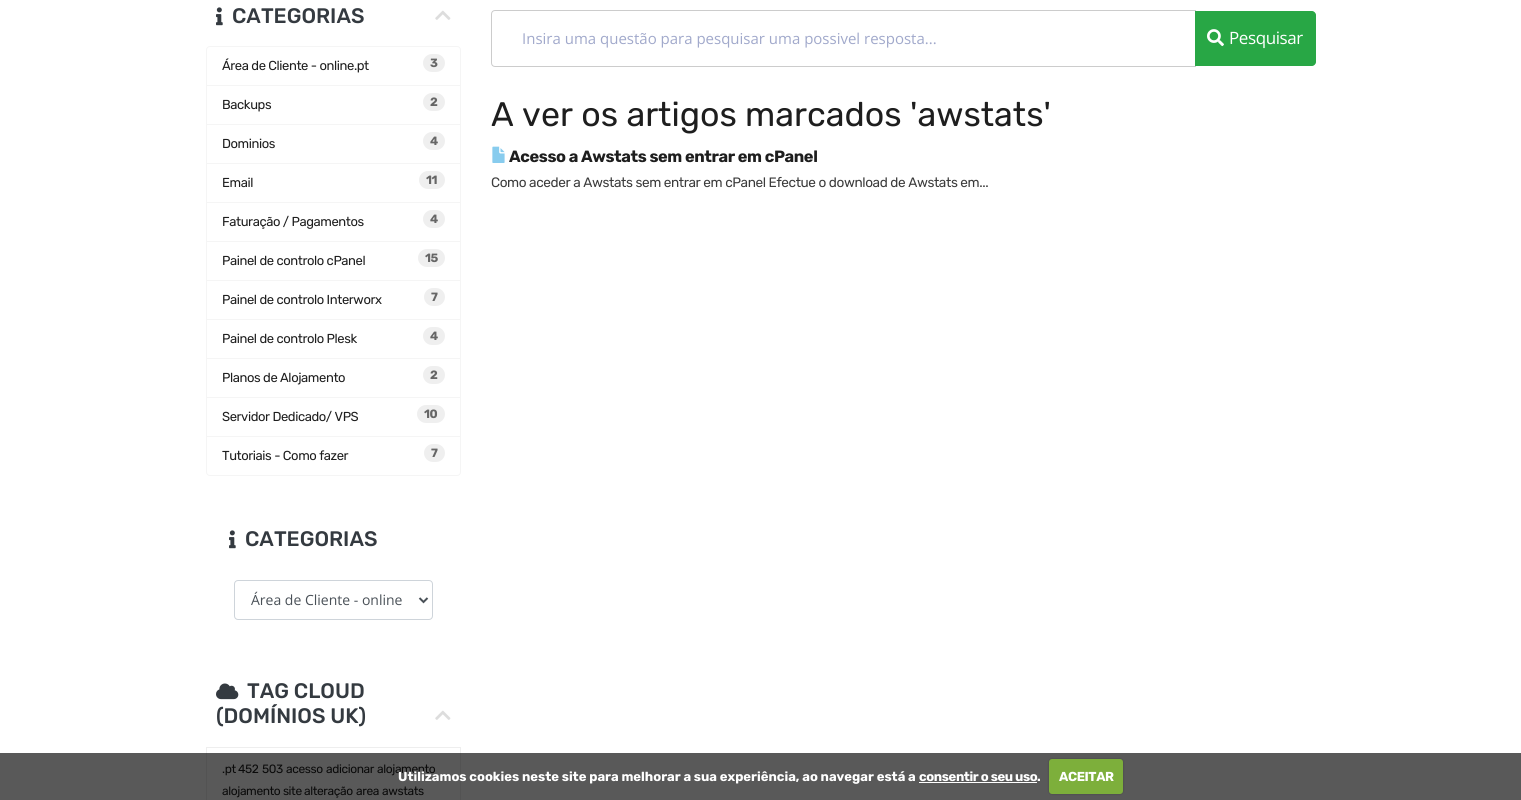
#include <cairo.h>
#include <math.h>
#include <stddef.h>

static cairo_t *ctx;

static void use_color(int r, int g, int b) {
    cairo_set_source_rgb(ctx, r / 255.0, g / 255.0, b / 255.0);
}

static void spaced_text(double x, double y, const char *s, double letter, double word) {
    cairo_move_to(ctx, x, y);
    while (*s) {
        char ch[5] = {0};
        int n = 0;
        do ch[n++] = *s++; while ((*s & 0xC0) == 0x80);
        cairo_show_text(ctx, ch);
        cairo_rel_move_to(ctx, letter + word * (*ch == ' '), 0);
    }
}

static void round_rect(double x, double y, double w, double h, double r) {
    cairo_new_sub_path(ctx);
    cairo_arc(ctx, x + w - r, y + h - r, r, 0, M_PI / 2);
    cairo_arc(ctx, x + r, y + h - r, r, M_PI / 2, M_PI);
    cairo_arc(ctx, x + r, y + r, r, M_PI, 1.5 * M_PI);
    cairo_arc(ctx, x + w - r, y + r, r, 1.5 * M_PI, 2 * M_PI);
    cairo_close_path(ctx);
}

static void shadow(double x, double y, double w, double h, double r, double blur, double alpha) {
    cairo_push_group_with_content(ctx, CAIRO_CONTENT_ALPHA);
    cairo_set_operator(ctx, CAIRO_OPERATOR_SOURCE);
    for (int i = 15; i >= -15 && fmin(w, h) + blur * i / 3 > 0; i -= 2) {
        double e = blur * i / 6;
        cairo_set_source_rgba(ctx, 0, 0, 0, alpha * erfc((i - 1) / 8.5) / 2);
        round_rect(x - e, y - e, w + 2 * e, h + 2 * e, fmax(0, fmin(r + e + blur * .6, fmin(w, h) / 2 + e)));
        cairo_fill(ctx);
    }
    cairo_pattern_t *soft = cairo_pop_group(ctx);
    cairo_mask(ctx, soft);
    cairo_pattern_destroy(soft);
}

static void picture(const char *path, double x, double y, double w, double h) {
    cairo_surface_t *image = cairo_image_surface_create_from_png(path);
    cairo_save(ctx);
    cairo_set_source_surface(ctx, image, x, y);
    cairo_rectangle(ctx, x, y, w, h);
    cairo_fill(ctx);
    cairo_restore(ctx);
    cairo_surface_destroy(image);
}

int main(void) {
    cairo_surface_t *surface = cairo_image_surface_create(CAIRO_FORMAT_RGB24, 1521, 800);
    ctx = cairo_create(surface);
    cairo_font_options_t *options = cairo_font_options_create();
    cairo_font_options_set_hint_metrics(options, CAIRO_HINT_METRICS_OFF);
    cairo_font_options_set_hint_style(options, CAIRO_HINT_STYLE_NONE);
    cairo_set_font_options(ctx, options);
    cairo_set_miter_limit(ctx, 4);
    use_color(255, 255, 255);
    cairo_paint(ctx);
    picture("img1.png", 216, 7, 7, 19);
    cairo_select_font_face(ctx, "Rubik Medium", CAIRO_FONT_SLANT_NORMAL, CAIRO_FONT_WEIGHT_NORMAL);
    cairo_set_font_size(ctx, 21);
    use_color(52, 58, 64);
    cairo_move_to(ctx, 232, 23);
    cairo_show_text(ctx, "CATEGORIAS");
    picture("img2.png", 435, 10, 16, 10);
    cairo_new_path(ctx);
    cairo_move_to(ctx, 210, 46.5);
    cairo_line_to(ctx, 457, 46.5);
    cairo_curve_to(ctx, 459, 46.5, 460.5, 48, 460.5, 50);
    cairo_line_to(ctx, 460.5, 85.5);
    cairo_line_to(ctx, 206.5, 85.5);
    cairo_line_to(ctx, 206.5, 50);
    cairo_curve_to(ctx, 206.5, 48, 208, 46.5, 210, 46.5);
    cairo_close_path(ctx);
    use_color(245, 245, 245);
    cairo_set_line_width(ctx, 1);
    cairo_stroke(ctx);
    cairo_select_font_face(ctx, "Rubik", CAIRO_FONT_SLANT_NORMAL, CAIRO_FONT_WEIGHT_NORMAL);
    cairo_set_font_size(ctx, 13);
    use_color(30, 30, 30);
    spaced_text(222, 70, "Área de Cliente - online.pt", -0.4, 0);
    use_color(239, 239, 239);
    round_rect(423, 54, 22, 18, 9);
    cairo_fill(ctx);
    cairo_select_font_face(ctx, "Rubik", CAIRO_FONT_SLANT_NORMAL, CAIRO_FONT_WEIGHT_BOLD);
    cairo_set_font_size(ctx, 12);
    use_color(102, 102, 102);
    spaced_text(430, 67, "3", -0.4, 0);
    cairo_rectangle(ctx, 206.5, 85.5, 254, 39);
    use_color(245, 245, 245);
    cairo_stroke(ctx);
    cairo_select_font_face(ctx, "Rubik", CAIRO_FONT_SLANT_NORMAL, CAIRO_FONT_WEIGHT_NORMAL);
    cairo_set_font_size(ctx, 13);
    use_color(30, 30, 30);
    spaced_text(222, 109, "Backups", -0.4, 0);
    use_color(239, 239, 239);
    round_rect(423, 93, 22, 18, 9);
    cairo_fill(ctx);
    cairo_select_font_face(ctx, "Rubik", CAIRO_FONT_SLANT_NORMAL, CAIRO_FONT_WEIGHT_BOLD);
    cairo_set_font_size(ctx, 12);
    use_color(102, 102, 102);
    spaced_text(430, 106, "2", -0.4, 0);
    cairo_rectangle(ctx, 206.5, 124.5, 254, 39);
    use_color(245, 245, 245);
    cairo_stroke(ctx);
    cairo_select_font_face(ctx, "Rubik", CAIRO_FONT_SLANT_NORMAL, CAIRO_FONT_WEIGHT_NORMAL);
    cairo_set_font_size(ctx, 13);
    use_color(30, 30, 30);
    spaced_text(222, 148, "Dominios", -0.4, 0);
    use_color(239, 239, 239);
    round_rect(423, 132, 22, 18, 9);
    cairo_fill(ctx);
    cairo_select_font_face(ctx, "Rubik", CAIRO_FONT_SLANT_NORMAL, CAIRO_FONT_WEIGHT_BOLD);
    cairo_set_font_size(ctx, 12);
    use_color(102, 102, 102);
    spaced_text(430, 145, "4", -0.4, 0);
    cairo_rectangle(ctx, 206.5, 163.5, 254, 39);
    use_color(245, 245, 245);
    cairo_stroke(ctx);
    cairo_select_font_face(ctx, "Rubik", CAIRO_FONT_SLANT_NORMAL, CAIRO_FONT_WEIGHT_NORMAL);
    cairo_set_font_size(ctx, 13);
    use_color(30, 30, 30);
    spaced_text(222, 187, "Email", -0.4, 0);
    use_color(239, 239, 239);
    round_rect(419, 171, 26, 18, 9);
    cairo_fill(ctx);
    cairo_select_font_face(ctx, "Rubik", CAIRO_FONT_SLANT_NORMAL, CAIRO_FONT_WEIGHT_BOLD);
    cairo_set_font_size(ctx, 12);
    use_color(102, 102, 102);
    spaced_text(426, 184, "11", -0.4, 0);
    cairo_rectangle(ctx, 206.5, 202.5, 254, 39);
    use_color(245, 245, 245);
    cairo_stroke(ctx);
    cairo_select_font_face(ctx, "Rubik", CAIRO_FONT_SLANT_NORMAL, CAIRO_FONT_WEIGHT_NORMAL);
    cairo_set_font_size(ctx, 13);
    use_color(30, 30, 30);
    spaced_text(222, 226, "Faturação / Pagamentos", -0.4, 0);
    use_color(239, 239, 239);
    round_rect(423, 210, 22, 18, 9);
    cairo_fill(ctx);
    cairo_select_font_face(ctx, "Rubik", CAIRO_FONT_SLANT_NORMAL, CAIRO_FONT_WEIGHT_BOLD);
    cairo_set_font_size(ctx, 12);
    use_color(102, 102, 102);
    spaced_text(430, 223, "4", -0.4, 0);
    cairo_rectangle(ctx, 206.5, 241.5, 254, 39);
    use_color(245, 245, 245);
    cairo_stroke(ctx);
    cairo_select_font_face(ctx, "Rubik", CAIRO_FONT_SLANT_NORMAL, CAIRO_FONT_WEIGHT_NORMAL);
    cairo_set_font_size(ctx, 13);
    use_color(30, 30, 30);
    spaced_text(222, 265, "Painel de controlo cPanel", -0.4, 0);
    use_color(239, 239, 239);
    round_rect(418, 249, 27, 18, 9);
    cairo_fill(ctx);
    cairo_select_font_face(ctx, "Rubik", CAIRO_FONT_SLANT_NORMAL, CAIRO_FONT_WEIGHT_BOLD);
    cairo_set_font_size(ctx, 12);
    use_color(102, 102, 102);
    spaced_text(425, 262, "15", -0.4, 0);
    cairo_rectangle(ctx, 206.5, 280.5, 254, 39);
    use_color(245, 245, 245);
    cairo_stroke(ctx);
    cairo_select_font_face(ctx, "Rubik", CAIRO_FONT_SLANT_NORMAL, CAIRO_FONT_WEIGHT_NORMAL);
    cairo_set_font_size(ctx, 13);
    use_color(30, 30, 30);
    spaced_text(222, 304, "Painel de controlo Interworx", -0.4, 0);
    use_color(239, 239, 239);
    round_rect(424, 288, 21, 18, 9);
    cairo_fill(ctx);
    cairo_select_font_face(ctx, "Rubik", CAIRO_FONT_SLANT_NORMAL, CAIRO_FONT_WEIGHT_BOLD);
    cairo_set_font_size(ctx, 12);
    use_color(102, 102, 102);
    spaced_text(431, 301, "7", -0.4, 0);
    cairo_rectangle(ctx, 206.5, 319.5, 254, 39);
    use_color(245, 245, 245);
    cairo_stroke(ctx);
    cairo_select_font_face(ctx, "Rubik", CAIRO_FONT_SLANT_NORMAL, CAIRO_FONT_WEIGHT_NORMAL);
    cairo_set_font_size(ctx, 13);
    use_color(30, 30, 30);
    spaced_text(222, 343, "Painel de controlo Plesk", -0.4, 0);
    use_color(239, 239, 239);
    round_rect(423, 327, 22, 18, 9);
    cairo_fill(ctx);
    cairo_select_font_face(ctx, "Rubik", CAIRO_FONT_SLANT_NORMAL, CAIRO_FONT_WEIGHT_BOLD);
    cairo_set_font_size(ctx, 12);
    use_color(102, 102, 102);
    spaced_text(430, 340, "4", -0.4, 0);
    cairo_rectangle(ctx, 206.5, 358.5, 254, 39);
    use_color(245, 245, 245);
    cairo_stroke(ctx);
    cairo_select_font_face(ctx, "Rubik", CAIRO_FONT_SLANT_NORMAL, CAIRO_FONT_WEIGHT_NORMAL);
    cairo_set_font_size(ctx, 13);
    use_color(30, 30, 30);
    spaced_text(222, 382, "Planos de Alojamento", -0.4, 0);
    use_color(239, 239, 239);
    round_rect(423, 366, 22, 18, 9);
    cairo_fill(ctx);
    cairo_select_font_face(ctx, "Rubik", CAIRO_FONT_SLANT_NORMAL, CAIRO_FONT_WEIGHT_BOLD);
    cairo_set_font_size(ctx, 12);
    use_color(102, 102, 102);
    spaced_text(430, 379, "2", -0.4, 0);
    cairo_rectangle(ctx, 206.5, 397.5, 254, 39);
    use_color(245, 245, 245);
    cairo_stroke(ctx);
    cairo_select_font_face(ctx, "Rubik", CAIRO_FONT_SLANT_NORMAL, CAIRO_FONT_WEIGHT_NORMAL);
    cairo_set_font_size(ctx, 13);
    use_color(30, 30, 30);
    spaced_text(222, 421, "Servidor Dedicado/ VPS", -0.4, 0);
    use_color(239, 239, 239);
    round_rect(417, 405, 28, 18, 9);
    cairo_fill(ctx);
    cairo_select_font_face(ctx, "Rubik", CAIRO_FONT_SLANT_NORMAL, CAIRO_FONT_WEIGHT_BOLD);
    cairo_set_font_size(ctx, 12);
    use_color(102, 102, 102);
    spaced_text(424, 418, "10", -0.4, 0);
    use_color(255, 255, 255);
    cairo_new_path(ctx);
    cairo_move_to(ctx, 206.5, 436.5);
    cairo_line_to(ctx, 460.5, 436.5);
    cairo_line_to(ctx, 460.5, 472);
    cairo_curve_to(ctx, 460.5, 474, 459, 475.5, 457, 475.5);
    cairo_line_to(ctx, 210, 475.5);
    cairo_curve_to(ctx, 208, 475.5, 206.5, 474, 206.5, 472);
    cairo_close_path(ctx);
    cairo_fill_preserve(ctx);
    use_color(245, 245, 245);
    cairo_stroke(ctx);
    cairo_select_font_face(ctx, "Rubik", CAIRO_FONT_SLANT_NORMAL, CAIRO_FONT_WEIGHT_NORMAL);
    cairo_set_font_size(ctx, 13);
    use_color(30, 30, 30);
    spaced_text(222, 460, "Tutoriais - Como fazer", -0.4, 0);
    use_color(239, 239, 239);
    round_rect(424, 444, 21, 18, 9);
    cairo_fill(ctx);
    cairo_select_font_face(ctx, "Rubik", CAIRO_FONT_SLANT_NORMAL, CAIRO_FONT_WEIGHT_BOLD);
    cairo_set_font_size(ctx, 12);
    use_color(102, 102, 102);
    spaced_text(431, 457, "7", -0.4, 0);
    picture("img1.png", 229, 530, 7, 19);
    cairo_select_font_face(ctx, "Rubik Medium", CAIRO_FONT_SLANT_NORMAL, CAIRO_FONT_WEIGHT_NORMAL);
    cairo_set_font_size(ctx, 21);
    use_color(52, 58, 64);
    cairo_move_to(ctx, 245, 546);
    cairo_show_text(ctx, "CATEGORIAS");
    round_rect(234.5, 580.5, 198, 39, 3.5);
    use_color(206, 212, 218);
    cairo_stroke(ctx);
    cairo_new_path(ctx);
    cairo_move_to(ctx, 419.5, 598);
    cairo_line_to(ctx, 423.5, 602);
    cairo_line_to(ctx, 427.5, 598);
    use_color(73, 80, 87);
    cairo_set_line_width(ctx, 2);
    cairo_stroke(ctx);
    cairo_select_font_face(ctx, "Open Sans", CAIRO_FONT_SLANT_NORMAL, CAIRO_FONT_WEIGHT_NORMAL);
    cairo_set_font_size(ctx, 14);
    cairo_move_to(ctx, 251, 605);
    cairo_show_text(ctx, "Área de Cliente - online");
    picture("img3.png", 216, 683, 23, 17);
    cairo_select_font_face(ctx, "Rubik Medium", CAIRO_FONT_SLANT_NORMAL, CAIRO_FONT_WEIGHT_NORMAL);
    cairo_set_font_size(ctx, 21);
    use_color(52, 58, 64);
    cairo_move_to(ctx, 247, 698);
    cairo_show_text(ctx, "TAG CLOUD");
    cairo_move_to(ctx, 216, 723);
    cairo_show_text(ctx, "(DOMÍNIOS UK)");
    picture("img2.png", 435, 710, 16, 10);
    cairo_rectangle(ctx, 206.5, 747.5, 254, 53);
    use_color(238, 238, 238);
    cairo_set_line_width(ctx, 1);
    cairo_stroke(ctx);
    cairo_select_font_face(ctx, "Rubik", CAIRO_FONT_SLANT_NORMAL, CAIRO_FONT_WEIGHT_NORMAL);
    cairo_set_font_size(ctx, 12);
    use_color(30, 30, 30);
    spaced_text(222, 773, ".pt", -0.4, 0);
    spaced_text(238, 773, "452", -0.4, 0);
    spaced_text(262, 773, "503", -0.4, 0);
    spaced_text(286, 773, "acesso", -0.4, 0);
    spaced_text(326, 773, "adicionar", -0.4, 0);
    spaced_text(377, 773, "alojamento", -0.4, 0);
    spaced_text(222, 795, "alojamento site", -0.4, 0);
    spaced_text(304, 795, "alteração", -0.4, 0);
    spaced_text(356, 795, "area", -0.4, 0);
    spaced_text(382, 795, "awstats", -0.4, 0);
    cairo_new_path(ctx);
    cairo_move_to(ctx, 495, 10.5);
    cairo_line_to(ctx, 1195.5, 10.5);
    cairo_line_to(ctx, 1195.5, 66.5);
    cairo_line_to(ctx, 495, 66.5);
    cairo_curve_to(ctx, 493, 66.5, 491.5, 65, 491.5, 63);
    cairo_line_to(ctx, 491.5, 14);
    cairo_curve_to(ctx, 491.5, 12, 493, 10.5, 495, 10.5);
    cairo_close_path(ctx);
    use_color(204, 204, 204);
    cairo_stroke(ctx);
    cairo_select_font_face(ctx, "Open Sans", CAIRO_FONT_SLANT_NORMAL, CAIRO_FONT_WEIGHT_NORMAL);
    cairo_set_font_size(ctx, 15);
    use_color(161, 169, 203);
    cairo_move_to(ctx, 522, 44);
    cairo_show_text(ctx, "Insira uma questão para pesquisar uma possivel resposta...");
    use_color(40, 167, 69);
    cairo_new_path(ctx);
    cairo_move_to(ctx, 1195, 11);
    cairo_line_to(ctx, 1312, 11);
    cairo_curve_to(ctx, 1314, 11, 1316, 13, 1316, 15);
    cairo_line_to(ctx, 1316, 62);
    cairo_curve_to(ctx, 1316, 64, 1314, 66, 1312, 66);
    cairo_line_to(ctx, 1195, 66);
    cairo_close_path(ctx);
    cairo_fill(ctx);
    picture("img4.png", 1207, 29, 17, 18);
    cairo_set_font_size(ctx, 17);
    use_color(255, 255, 255);
    spaced_text(1229, 44, "Pesquisar", -0.4, 0);
    cairo_select_font_face(ctx, "Rubik", CAIRO_FONT_SLANT_NORMAL, CAIRO_FONT_WEIGHT_NORMAL);
    cairo_set_font_size(ctx, 34);
    use_color(30, 30, 30);
    cairo_move_to(ctx, 491, 126);
    cairo_show_text(ctx, "A ver os artigos marcados 'awstats'");
    picture("img5.png", 492, 146, 13, 17);
    cairo_select_font_face(ctx, "Rubik", CAIRO_FONT_SLANT_NORMAL, CAIRO_FONT_WEIGHT_BOLD);
    cairo_set_font_size(ctx, 16.3);
    spaced_text(509, 162, "Acesso a Awstats sem entrar em cPanel", -0.4, 0);
    cairo_select_font_face(ctx, "Rubik", CAIRO_FONT_SLANT_NORMAL, CAIRO_FONT_WEIGHT_NORMAL);
    cairo_set_font_size(ctx, 13.6);
    use_color(60, 60, 60);
    spaced_text(491, 187, "Como aceder a Awstats sem entrar em cPanel Efectue o download de Awstats em...", -0.4, 0);
    cairo_set_source_rgba(ctx, 0, 0, 0, 0.65);
    cairo_rectangle(ctx, 0, 753, 1521, 47);
    cairo_fill(ctx);
    cairo_select_font_face(ctx, "Rubik", CAIRO_FONT_SLANT_NORMAL, CAIRO_FONT_WEIGHT_BOLD);
    cairo_set_font_size(ctx, 13);
    use_color(255, 255, 255);
    cairo_move_to(ctx, 398, 781);
    cairo_show_text(ctx, "Utilizamos cookies neste site para melhorar a sua experiência, ao navegar está a");
    spaced_text(919, 781, "consentir o seu uso", -0.4, 0);
    cairo_rectangle(ctx, 919, 782, 118, 1);
    cairo_fill(ctx);
    cairo_move_to(ctx, 1037, 781);
    cairo_show_text(ctx, ".");
    use_color(0, 0, 0);
    shadow(1049, 759, 74, 35, 3, 1, 0.25);
    use_color(125, 175, 59);
    round_rect(1049, 759, 74, 35, 3);
    cairo_fill(ctx);
    use_color(255, 255, 255);
    spaced_text(1059, 781, "ACEITAR", -0.4, 0);
    cairo_surface_write_to_png(surface, "result.png");
    cairo_font_options_destroy(options);
    cairo_destroy(ctx);
    cairo_surface_destroy(surface);
    return 0;
}
